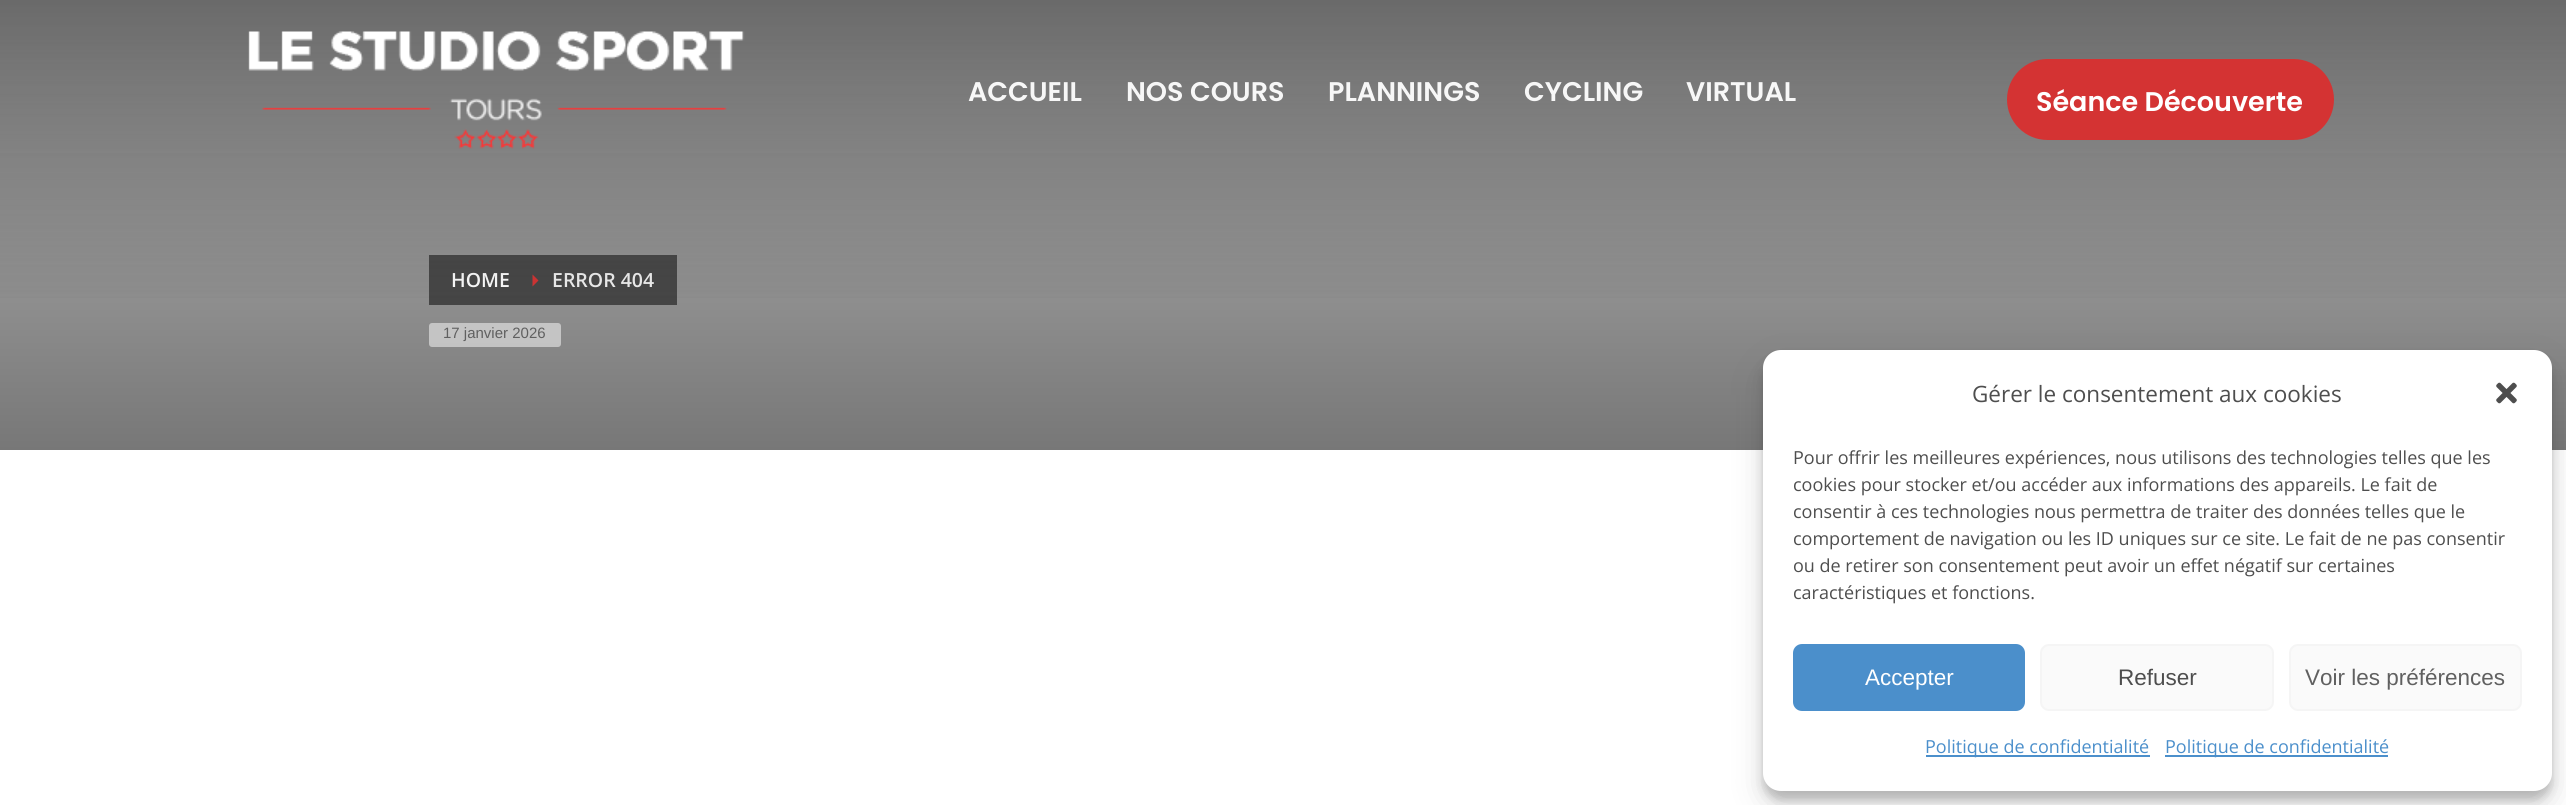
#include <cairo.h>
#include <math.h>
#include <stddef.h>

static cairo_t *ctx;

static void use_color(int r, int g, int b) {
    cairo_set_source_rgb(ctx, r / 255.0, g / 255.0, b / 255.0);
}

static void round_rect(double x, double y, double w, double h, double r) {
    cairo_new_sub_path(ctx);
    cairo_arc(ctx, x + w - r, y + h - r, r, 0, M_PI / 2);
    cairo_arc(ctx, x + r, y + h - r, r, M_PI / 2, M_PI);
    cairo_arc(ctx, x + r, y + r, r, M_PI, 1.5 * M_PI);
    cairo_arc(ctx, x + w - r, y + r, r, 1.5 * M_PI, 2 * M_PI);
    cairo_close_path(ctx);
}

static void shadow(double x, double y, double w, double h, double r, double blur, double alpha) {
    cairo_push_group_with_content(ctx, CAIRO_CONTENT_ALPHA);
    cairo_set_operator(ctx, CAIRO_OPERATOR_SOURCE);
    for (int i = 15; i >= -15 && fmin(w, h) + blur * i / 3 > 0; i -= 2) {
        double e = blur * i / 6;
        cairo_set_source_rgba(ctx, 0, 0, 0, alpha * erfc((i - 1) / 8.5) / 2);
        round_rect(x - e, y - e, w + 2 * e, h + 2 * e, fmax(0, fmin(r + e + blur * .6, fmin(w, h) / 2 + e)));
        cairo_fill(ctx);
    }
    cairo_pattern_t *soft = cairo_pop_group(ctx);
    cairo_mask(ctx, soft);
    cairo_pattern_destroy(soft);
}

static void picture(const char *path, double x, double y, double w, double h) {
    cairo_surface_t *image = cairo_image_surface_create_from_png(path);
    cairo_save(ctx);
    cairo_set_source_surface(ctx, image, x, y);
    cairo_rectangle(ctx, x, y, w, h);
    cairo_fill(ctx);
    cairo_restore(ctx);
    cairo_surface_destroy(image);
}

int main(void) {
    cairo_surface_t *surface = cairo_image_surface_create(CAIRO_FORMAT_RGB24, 2566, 805);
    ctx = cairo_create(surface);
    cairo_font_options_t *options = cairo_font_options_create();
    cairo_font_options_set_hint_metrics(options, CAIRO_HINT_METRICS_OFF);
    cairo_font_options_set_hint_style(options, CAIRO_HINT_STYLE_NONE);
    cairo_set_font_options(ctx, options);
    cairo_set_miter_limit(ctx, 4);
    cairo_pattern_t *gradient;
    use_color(255, 255, 255);
    cairo_paint(ctx);
    gradient = cairo_pattern_create_linear(1283, 0, 1283, 450);
    cairo_pattern_add_color_stop_rgba(gradient, 0, 0.737, 0.737, 0.737, 1);
    cairo_pattern_add_color_stop_rgba(gradient, 1, 0.467, 0.467, 0.467, 1);
    cairo_set_source(ctx, gradient);
    cairo_pattern_destroy(gradient);
    cairo_rectangle(ctx, 0, 0, 2566, 450);
    cairo_fill(ctx);
    gradient = cairo_pattern_create_linear(1283, 0, 1283, 450);
    cairo_pattern_add_color_stop_rgba(gradient, 0, 0.306, 0.306, 0.306, 1);
    cairo_pattern_add_color_stop_rgba(gradient, 1, 0.255, 0.255, 0.255, 1);
    cairo_set_source(ctx, gradient);
    cairo_pattern_destroy(gradient);
    cairo_rectangle(ctx, 518, 255, 159, 50);
    cairo_fill(ctx);
    cairo_rectangle(ctx, 429, 255, 89, 50);
    cairo_fill(ctx);
    cairo_select_font_face(ctx, "Open Sans SemiBold", CAIRO_FONT_SLANT_NORMAL, CAIRO_FONT_WEIGHT_NORMAL);
    cairo_set_font_size(ctx, 19.5);
    use_color(255, 255, 255);
    cairo_move_to(ctx, 451, 287);
    cairo_show_text(ctx, "HOME");
    use_color(212, 51, 51);
    cairo_new_path(ctx);
    cairo_move_to(ctx, 532.5, 286.5);
    cairo_line_to(ctx, 532.5, 274.5);
    cairo_line_to(ctx, 538.5, 280.5);
    cairo_close_path(ctx);
    cairo_fill(ctx);
    use_color(241, 241, 241);
    cairo_move_to(ctx, 552, 287);
    cairo_show_text(ctx, "ERROR 404");
    gradient = cairo_pattern_create_linear(1283, 0, 1283, 311);
    cairo_pattern_add_color_stop_rgba(gradient, 0, 0.2, 0.2, 0.2, 0.6);
    cairo_pattern_add_color_stop_rgba(gradient, 1, 0.2, 0.2, 0.2, 0);
    cairo_set_source(ctx, gradient);
    cairo_pattern_destroy(gradient);
    cairo_rectangle(ctx, 0, 0, 2566, 298);
    cairo_fill(ctx);
    picture("img1.png", 248, 31, 497, 118);
    cairo_select_font_face(ctx, "Poppins SemiBold", CAIRO_FONT_SLANT_NORMAL, CAIRO_FONT_WEIGHT_NORMAL);
    cairo_set_font_size(ctx, 27);
    use_color(247, 247, 247);
    cairo_move_to(ctx, 968, 101);
    cairo_show_text(ctx, "ACCUEIL");
    cairo_move_to(ctx, 1126, 101);
    cairo_show_text(ctx, "NOS COURS");
    cairo_move_to(ctx, 1328, 101);
    cairo_show_text(ctx, "PLANNINGS");
    cairo_move_to(ctx, 1524, 101);
    cairo_show_text(ctx, "CYCLING");
    cairo_move_to(ctx, 1686, 101);
    cairo_show_text(ctx, "VIRTUAL");
    use_color(212, 51, 51);
    round_rect(2007, 59, 327, 81, 40.5);
    cairo_fill(ctx);
    use_color(255, 255, 255);
    cairo_move_to(ctx, 2036, 111);
    cairo_show_text(ctx, "Séance Découverte");
    cairo_set_source_rgba(ctx, 1, 1, 1, 0.5);
    round_rect(429, 323, 132, 24, 3);
    cairo_fill(ctx);
    cairo_select_font_face(ctx, "Liberation Sans", CAIRO_FONT_SLANT_NORMAL, CAIRO_FONT_WEIGHT_NORMAL);
    cairo_set_font_size(ctx, 15);
    use_color(96, 96, 96);
    cairo_move_to(ctx, 443, 338);
    cairo_show_text(ctx, "17 janvier 2026");
    use_color(51, 51, 51);
    shadow(1763, 359, 789, 441, 18, 4.5, 0.23);
    shadow(1763, 365, 789, 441, 18, 15, 0.19);
    use_color(255, 255, 255);
    round_rect(1763, 350, 789, 441, 18);
    cairo_fill(ctx);
    cairo_select_font_face(ctx, "Open Sans", CAIRO_FONT_SLANT_NORMAL, CAIRO_FONT_WEIGHT_NORMAL);
    cairo_set_font_size(ctx, 22.5);
    use_color(78, 78, 78);
    cairo_move_to(ctx, 1972, 402);
    cairo_show_text(ctx, "Gérer le consentement aux cookies");
    picture("img2.png", 2496, 382, 21, 22);
    cairo_set_font_size(ctx, 18);
    cairo_move_to(ctx, 1793, 464);
    cairo_show_text(ctx, "Pour offrir les meilleures expériences, nous utilisons des technologies telles que les");
    cairo_move_to(ctx, 1793, 491);
    cairo_show_text(ctx, "cookies pour stocker et/ou accéder aux informations des appareils. Le fait de");
    cairo_move_to(ctx, 1793, 518);
    cairo_show_text(ctx, "consentir à ces technologies nous permettra de traiter des données telles que le");
    cairo_move_to(ctx, 1793, 545);
    cairo_show_text(ctx, "comportement de navigation ou les ID uniques sur ce site. Le fait de ne pas consentir");
    cairo_move_to(ctx, 1793, 572);
    cairo_show_text(ctx, "ou de retirer son consentement peut avoir un effet négatif sur certaines");
    cairo_move_to(ctx, 1793, 599);
    cairo_show_text(ctx, "caractéristiques et fonctions.");
    use_color(75, 143, 203);
    round_rect(1794, 645, 230, 65, 8);
    cairo_fill_preserve(ctx);
    cairo_stroke(ctx);
    cairo_select_font_face(ctx, "Liberation Sans", CAIRO_FONT_SLANT_NORMAL, CAIRO_FONT_WEIGHT_NORMAL);
    cairo_set_font_size(ctx, 22.5);
    use_color(255, 255, 255);
    cairo_move_to(ctx, 1865, 685);
    cairo_show_text(ctx, "Accepter");
    use_color(250, 250, 250);
    round_rect(2041, 645, 232, 65, 8);
    cairo_fill_preserve(ctx);
    use_color(245, 245, 245);
    cairo_stroke(ctx);
    use_color(78, 78, 78);
    cairo_move_to(ctx, 2118, 685);
    cairo_show_text(ctx, "Refuser");
    use_color(250, 250, 250);
    round_rect(2290, 645, 231, 65, 8);
    cairo_fill_preserve(ctx);
    use_color(245, 245, 245);
    cairo_stroke(ctx);
    use_color(96, 96, 96);
    cairo_move_to(ctx, 2305, 685);
    cairo_show_text(ctx, "Voir les préférences");
    use_color(75, 143, 203);
    cairo_rectangle(ctx, 1926, 755, 224, 2);
    cairo_fill(ctx);
    cairo_select_font_face(ctx, "Open Sans", CAIRO_FONT_SLANT_NORMAL, CAIRO_FONT_WEIGHT_NORMAL);
    cairo_set_font_size(ctx, 18);
    cairo_move_to(ctx, 1925, 753);
    cairo_show_text(ctx, "Politique de confidentialité");
    cairo_rectangle(ctx, 2165, 755, 223, 2);
    cairo_fill(ctx);
    cairo_move_to(ctx, 2165, 753);
    cairo_show_text(ctx, "Politique de confidentialité");
    cairo_surface_write_to_png(surface, "result.png");
    cairo_font_options_destroy(options);
    cairo_destroy(ctx);
    cairo_surface_destroy(surface);
    return 0;
}
